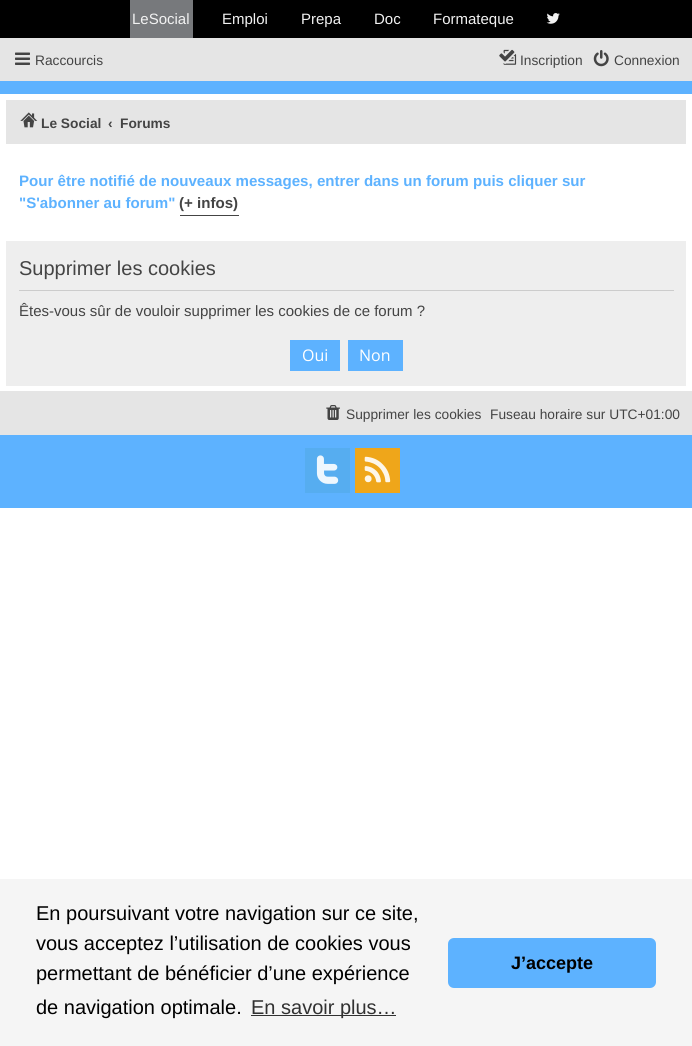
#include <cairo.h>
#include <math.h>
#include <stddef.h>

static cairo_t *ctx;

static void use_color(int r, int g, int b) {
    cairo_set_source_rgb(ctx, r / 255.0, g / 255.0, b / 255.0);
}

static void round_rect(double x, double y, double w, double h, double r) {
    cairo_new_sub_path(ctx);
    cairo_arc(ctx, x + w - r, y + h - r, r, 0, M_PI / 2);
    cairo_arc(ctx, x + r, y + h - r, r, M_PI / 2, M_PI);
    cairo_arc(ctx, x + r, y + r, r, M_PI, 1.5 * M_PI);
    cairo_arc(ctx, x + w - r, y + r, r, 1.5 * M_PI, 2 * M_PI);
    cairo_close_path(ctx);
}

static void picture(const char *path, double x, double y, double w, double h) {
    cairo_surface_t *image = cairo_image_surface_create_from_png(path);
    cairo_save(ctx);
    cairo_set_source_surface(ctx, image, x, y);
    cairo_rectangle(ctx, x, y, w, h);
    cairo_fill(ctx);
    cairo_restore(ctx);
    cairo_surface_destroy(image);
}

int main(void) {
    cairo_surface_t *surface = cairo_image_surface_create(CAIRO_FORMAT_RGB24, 692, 1046);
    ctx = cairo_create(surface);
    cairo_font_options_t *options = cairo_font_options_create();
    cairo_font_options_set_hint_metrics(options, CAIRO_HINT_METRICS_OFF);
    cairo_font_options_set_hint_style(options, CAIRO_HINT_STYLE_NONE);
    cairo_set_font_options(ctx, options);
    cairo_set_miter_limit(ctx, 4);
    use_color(255, 255, 255);
    cairo_paint(ctx);
    use_color(0, 0, 0);
    cairo_rectangle(ctx, 0, 0, 692, 38);
    cairo_fill(ctx);
    use_color(119, 121, 124);
    cairo_rectangle(ctx, 130, 0, 63, 38);
    cairo_fill(ctx);
    cairo_select_font_face(ctx, "Liberation Sans", CAIRO_FONT_SLANT_NORMAL, CAIRO_FONT_WEIGHT_NORMAL);
    cairo_set_font_size(ctx, 15);
    use_color(242, 242, 242);
    cairo_move_to(ctx, 132, 24);
    cairo_show_text(ctx, "LeSocial");
    cairo_move_to(ctx, 222, 24);
    cairo_show_text(ctx, "Emploi");
    cairo_move_to(ctx, 301, 24);
    cairo_show_text(ctx, "Prepa");
    cairo_move_to(ctx, 374, 24);
    cairo_show_text(ctx, "Doc");
    cairo_move_to(ctx, 433, 24);
    cairo_show_text(ctx, "Formateque");
    picture("img1.png", 546, 13, 14, 11);
    use_color(229, 229, 229);
    cairo_rectangle(ctx, 0, 38, 692, 43);
    cairo_fill(ctx);
    picture("img2.png", 15, 52, 15, 13);
    cairo_set_font_size(ctx, 13.75);
    use_color(68, 68, 68);
    cairo_move_to(ctx, 35, 65);
    cairo_show_text(ctx, "Raccourcis");
    picture("img3.png", 499, 49, 18, 16);
    cairo_move_to(ctx, 520, 65);
    cairo_show_text(ctx, "Inscription");
    picture("img4.png", 593, 50, 16, 17);
    cairo_move_to(ctx, 614, 65);
    cairo_show_text(ctx, "Connexion");
    use_color(93, 178, 255);
    cairo_rectangle(ctx, 0, 81, 692, 13);
    cairo_fill(ctx);
    use_color(229, 229, 229);
    cairo_rectangle(ctx, 6, 100, 680, 44);
    cairo_fill(ctx);
    picture("img5.png", 20, 112, 18, 16);
    cairo_select_font_face(ctx, "Liberation Sans", CAIRO_FONT_SLANT_NORMAL, CAIRO_FONT_WEIGHT_BOLD);
    use_color(68, 68, 68);
    cairo_move_to(ctx, 41, 128);
    cairo_show_text(ctx, "Le Social");
    cairo_move_to(ctx, 108, 128);
    cairo_show_text(ctx, "‹");
    cairo_move_to(ctx, 120, 128);
    cairo_show_text(ctx, "Forums");
    cairo_set_font_size(ctx, 15.1);
    use_color(93, 178, 255);
    cairo_move_to(ctx, 19, 186);
    cairo_show_text(ctx, "Pour être notifié de nouveaux messages, entrer dans un forum puis cliquer sur");
    cairo_move_to(ctx, 19, 208);
    cairo_show_text(ctx, "\"S'abonner au forum\"");
    use_color(68, 68, 68);
    cairo_rectangle(ctx, 180, 215, 59, 1);
    cairo_fill(ctx);
    cairo_move_to(ctx, 179, 208);
    cairo_show_text(ctx, "(+ infos)");
    use_color(238, 238, 238);
    cairo_rectangle(ctx, 6, 241, 680, 145);
    cairo_fill(ctx);
    use_color(204, 204, 204);
    cairo_rectangle(ctx, 19, 290, 655, 1);
    cairo_fill(ctx);
    cairo_select_font_face(ctx, "Liberation Sans", CAIRO_FONT_SLANT_NORMAL, CAIRO_FONT_WEIGHT_NORMAL);
    cairo_set_font_size(ctx, 20);
    use_color(68, 68, 68);
    cairo_move_to(ctx, 19, 275);
    cairo_show_text(ctx, "Supprimer les cookies");
    cairo_set_font_size(ctx, 15);
    cairo_move_to(ctx, 19, 316);
    cairo_show_text(ctx, "Êtes-vous sûr de vouloir supprimer les cookies de ce forum ?");
    use_color(93, 178, 255);
    cairo_rectangle(ctx, 290, 340, 50, 31);
    cairo_fill(ctx);
    cairo_select_font_face(ctx, "Open Sans", CAIRO_FONT_SLANT_NORMAL, CAIRO_FONT_WEIGHT_NORMAL);
    cairo_set_font_size(ctx, 16);
    use_color(255, 255, 255);
    cairo_move_to(ctx, 302, 361);
    cairo_show_text(ctx, "Oui");
    use_color(93, 178, 255);
    cairo_rectangle(ctx, 348, 340, 55, 31);
    cairo_fill(ctx);
    use_color(255, 255, 255);
    cairo_move_to(ctx, 359, 361);
    cairo_show_text(ctx, "Non");
    use_color(229, 229, 229);
    cairo_rectangle(ctx, 0, 391, 692, 44);
    cairo_fill(ctx);
    picture("img6.png", 326, 405, 14, 15);
    cairo_select_font_face(ctx, "Liberation Sans", CAIRO_FONT_SLANT_NORMAL, CAIRO_FONT_WEIGHT_NORMAL);
    cairo_set_font_size(ctx, 13.75);
    use_color(68, 68, 68);
    cairo_move_to(ctx, 346, 419);
    cairo_show_text(ctx, "Supprimer les cookies");
    cairo_move_to(ctx, 490, 419);
    cairo_show_text(ctx, "Fuseau horaire sur UTC+01:00");
    use_color(93, 178, 255);
    cairo_rectangle(ctx, 0, 435, 692, 73);
    cairo_fill(ctx);
    use_color(86, 173, 240);
    cairo_rectangle(ctx, 305, 448, 45, 45);
    cairo_fill(ctx);
    picture("img7.png", 316, 455, 23, 29);
    use_color(239, 166, 26);
    cairo_rectangle(ctx, 355, 448, 45, 45);
    cairo_fill(ctx);
    picture("img8.png", 364, 456, 27, 27);
    use_color(245, 245, 245);
    cairo_rectangle(ctx, 0, 879, 692, 167);
    cairo_fill(ctx);
    cairo_set_font_size(ctx, 20);
    use_color(0, 0, 0);
    cairo_move_to(ctx, 36, 920);
    cairo_show_text(ctx, "En poursuivant votre navigation sur ce site,");
    cairo_move_to(ctx, 36, 950);
    cairo_show_text(ctx, "vous acceptez l’utilisation de cookies vous");
    cairo_move_to(ctx, 36, 980);
    cairo_show_text(ctx, "permettant de bénéficier d’une expérience");
    cairo_move_to(ctx, 36, 1014);
    cairo_show_text(ctx, "de navigation optimale.");
    use_color(49, 49, 49);
    cairo_rectangle(ctx, 251, 1015, 145, 1);
    cairo_fill(ctx);
    cairo_move_to(ctx, 251, 1014);
    cairo_show_text(ctx, "En savoir plus…");
    use_color(93, 178, 255);
    round_rect(448, 938, 208, 50, 6);
    cairo_fill(ctx);
    cairo_select_font_face(ctx, "Liberation Sans", CAIRO_FONT_SLANT_NORMAL, CAIRO_FONT_WEIGHT_BOLD);
    cairo_set_font_size(ctx, 18);
    use_color(0, 0, 0);
    cairo_move_to(ctx, 511, 969);
    cairo_show_text(ctx, "J’accepte");
    cairo_surface_write_to_png(surface, "result.png");
    cairo_font_options_destroy(options);
    cairo_destroy(ctx);
    cairo_surface_destroy(surface);
    return 0;
}
